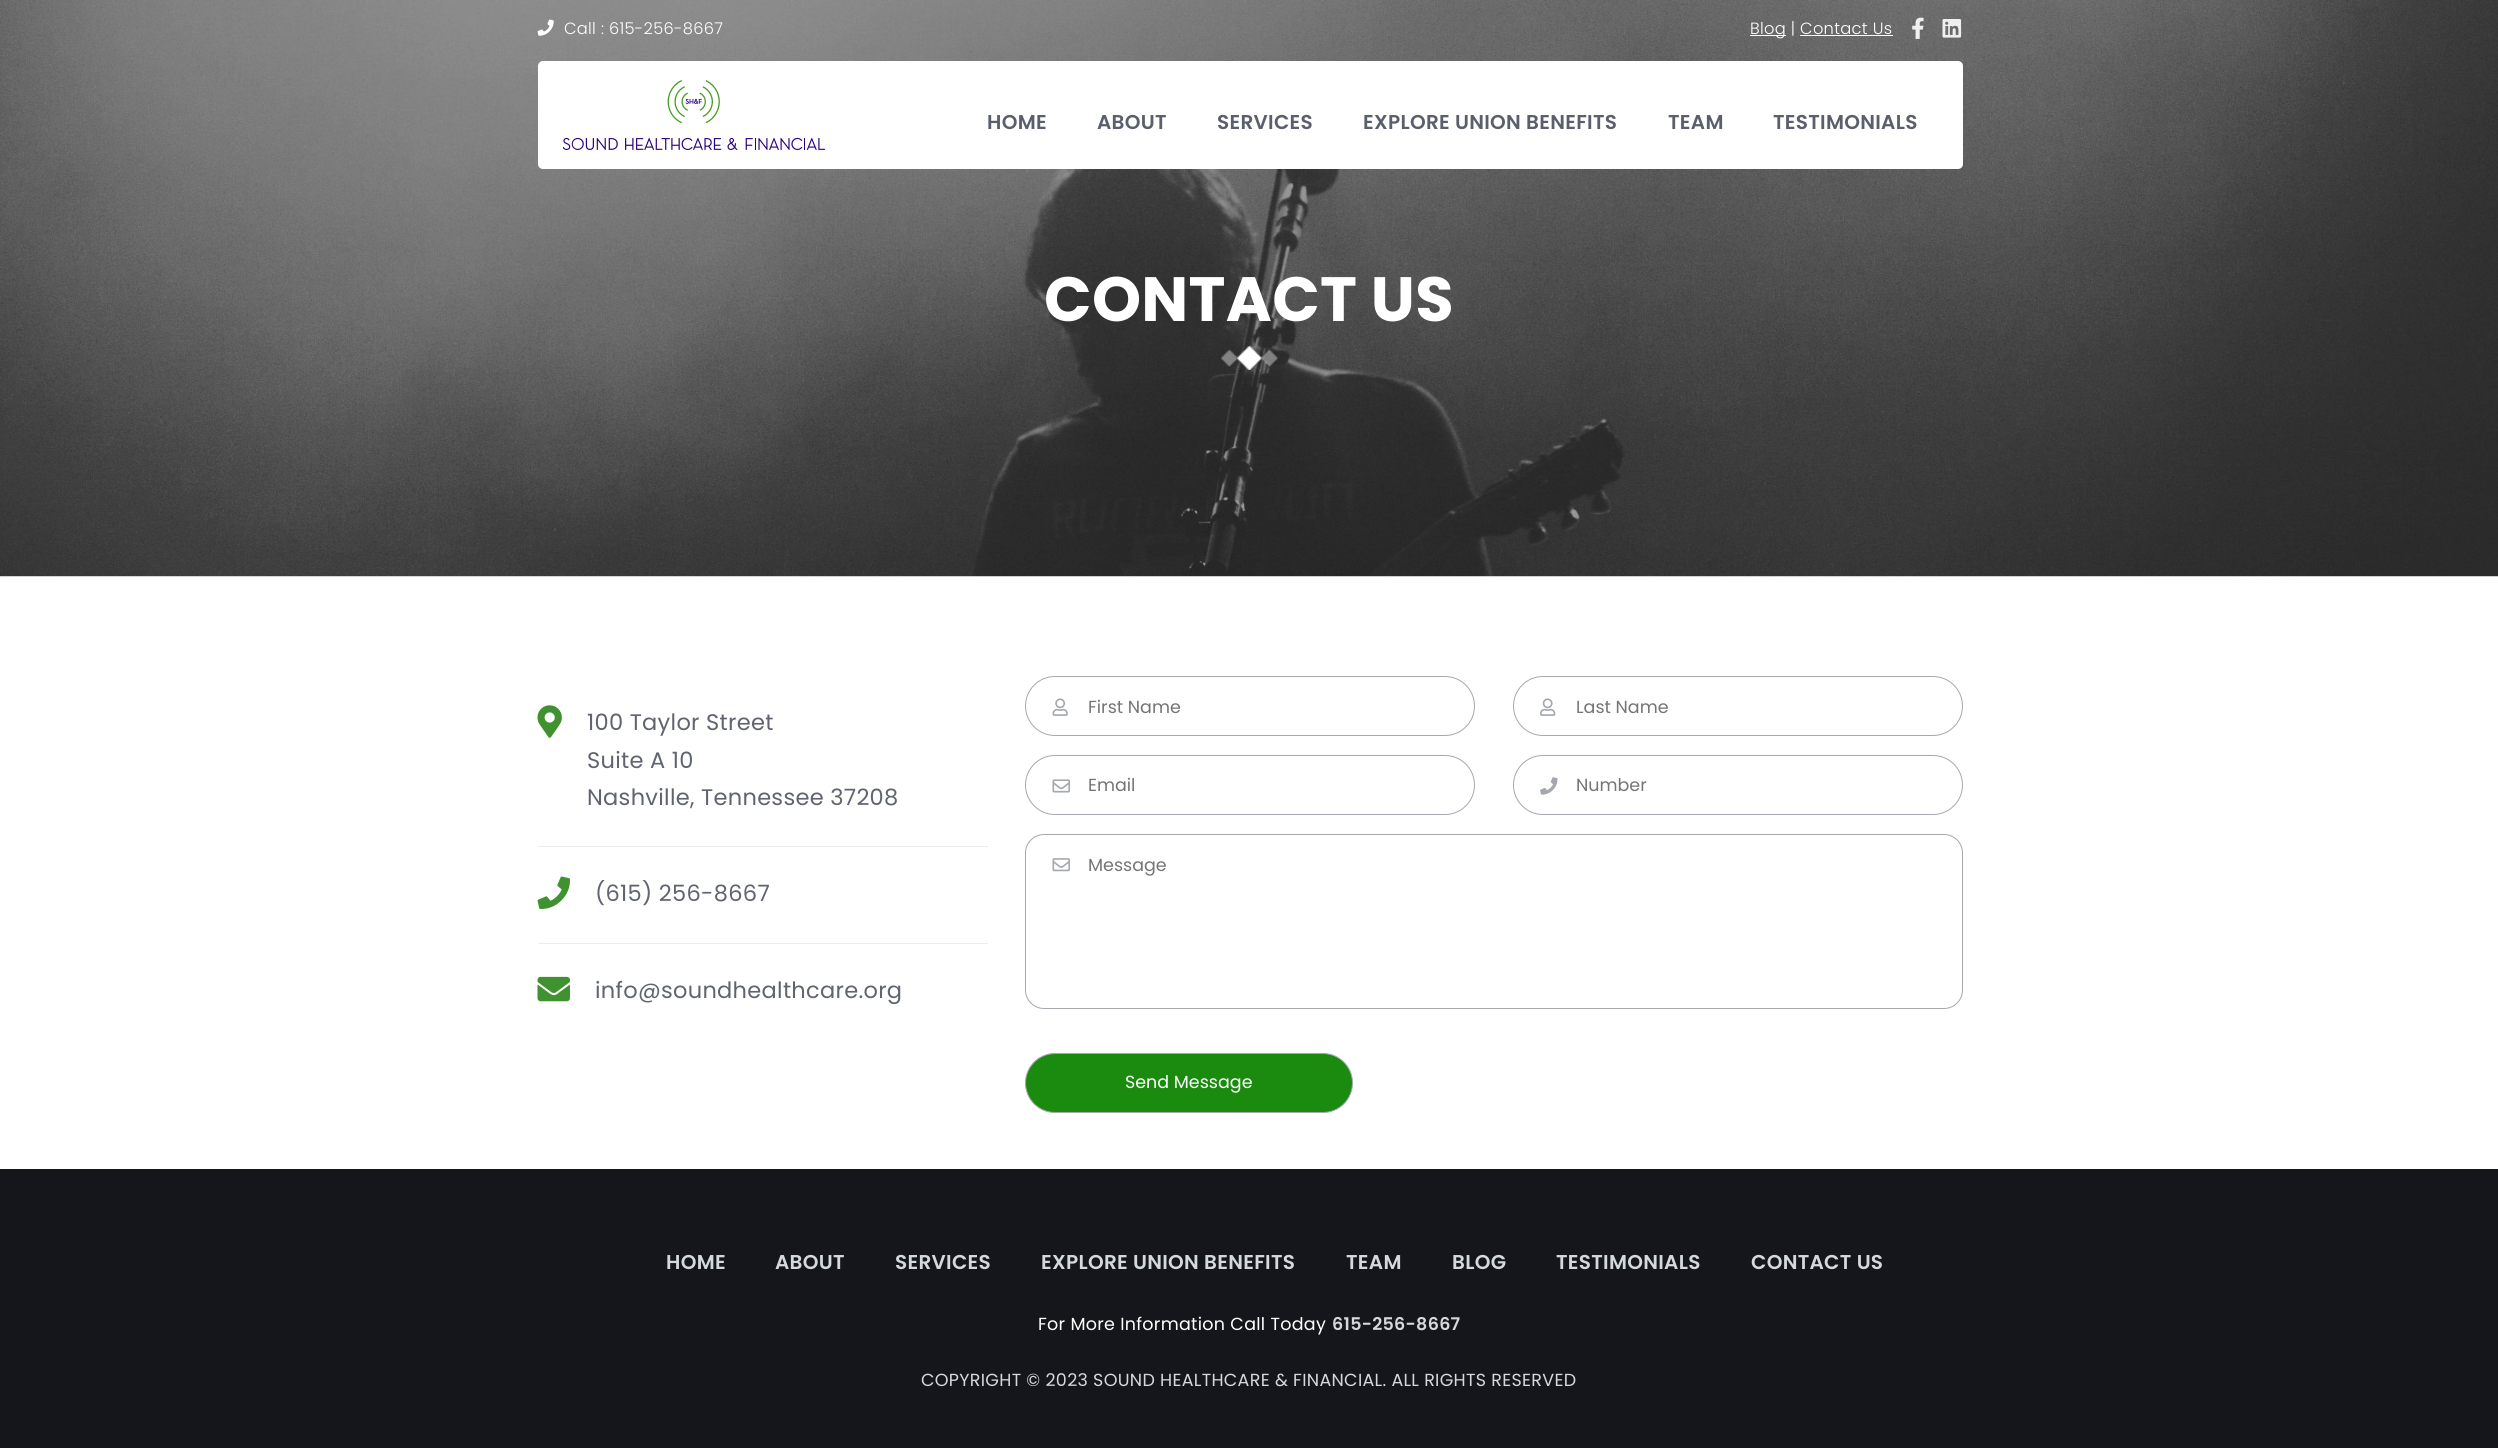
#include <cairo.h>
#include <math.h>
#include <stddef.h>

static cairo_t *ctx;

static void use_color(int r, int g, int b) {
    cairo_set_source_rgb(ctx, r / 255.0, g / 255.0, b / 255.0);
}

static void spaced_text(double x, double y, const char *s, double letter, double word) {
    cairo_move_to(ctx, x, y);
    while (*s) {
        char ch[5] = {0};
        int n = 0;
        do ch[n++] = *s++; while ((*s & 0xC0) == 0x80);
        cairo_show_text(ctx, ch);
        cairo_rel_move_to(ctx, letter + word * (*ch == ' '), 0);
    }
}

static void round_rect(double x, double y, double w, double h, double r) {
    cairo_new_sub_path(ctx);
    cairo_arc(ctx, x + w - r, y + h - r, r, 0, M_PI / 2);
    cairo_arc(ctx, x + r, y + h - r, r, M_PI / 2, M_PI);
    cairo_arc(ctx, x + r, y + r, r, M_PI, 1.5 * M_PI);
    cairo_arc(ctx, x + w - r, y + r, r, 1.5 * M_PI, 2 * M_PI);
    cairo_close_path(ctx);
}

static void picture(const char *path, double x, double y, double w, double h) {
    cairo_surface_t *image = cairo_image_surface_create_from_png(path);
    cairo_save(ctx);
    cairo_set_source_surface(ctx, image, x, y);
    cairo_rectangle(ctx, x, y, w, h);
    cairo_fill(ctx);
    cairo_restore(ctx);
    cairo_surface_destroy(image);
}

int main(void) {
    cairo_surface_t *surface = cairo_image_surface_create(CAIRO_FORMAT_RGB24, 2498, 1448);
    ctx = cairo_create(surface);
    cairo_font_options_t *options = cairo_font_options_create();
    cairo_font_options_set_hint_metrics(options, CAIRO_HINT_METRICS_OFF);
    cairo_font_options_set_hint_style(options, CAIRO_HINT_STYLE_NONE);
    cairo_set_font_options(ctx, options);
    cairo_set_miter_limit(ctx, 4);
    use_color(255, 255, 255);
    cairo_paint(ctx);
    picture("img5.png", 0, 0, 2498, 577);
    picture("img1.png", 537, 19, 17, 17);
    cairo_select_font_face(ctx, "Poppins Light", CAIRO_FONT_SLANT_NORMAL, CAIRO_FONT_WEIGHT_NORMAL);
    cairo_set_font_size(ctx, 16.25);
    use_color(255, 255, 255);
    spaced_text(564, 34, "Call : 615-256-8667", 0.3, 0);
    cairo_rectangle(ctx, 1750, 35, 36, 1);
    cairo_fill(ctx);
    spaced_text(1750, 34, "Blog | Contact Us", 0.3, 0);
    cairo_rectangle(ctx, 1800, 35, 93, 1);
    cairo_fill(ctx);
    picture("img2.png", 1912, 17, 12, 22);
    picture("img3.png", 1942, 19, 20, 19);
    round_rect(538, 61, 1425, 108, 5);
    cairo_fill(ctx);
    picture("img4.png", 563, 80, 262, 70);
    cairo_select_font_face(ctx, "Poppins SemiBold", CAIRO_FONT_SLANT_NORMAL, CAIRO_FONT_WEIGHT_NORMAL);
    cairo_set_font_size(ctx, 20);
    use_color(90, 95, 107);
    spaced_text(987, 129, "HOME", 0.3, 0);
    spaced_text(1097, 129, "ABOUT", 0.3, 0);
    spaced_text(1217, 129, "SERVICES", 0.3, 0);
    spaced_text(1363, 129, "EXPLORE UNION BENEFITS", 0.3, 0);
    spaced_text(1668, 129, "TEAM", 0.3, 0);
    spaced_text(1773, 129, "TESTIMONIALS", 0.3, 0);
    cairo_select_font_face(ctx, "Poppins", CAIRO_FONT_SLANT_NORMAL, CAIRO_FONT_WEIGHT_BOLD);
    cairo_set_font_size(ctx, 62.5);
    use_color(255, 255, 255);
    spaced_text(1044, 321, "CONTACT US", 0.3, 0);
    picture("img6.png", 1221, 346, 57, 24);
    picture("img7.png", 537, 705, 25, 33);
    cairo_select_font_face(ctx, "Poppins", CAIRO_FONT_SLANT_NORMAL, CAIRO_FONT_WEIGHT_NORMAL);
    cairo_set_font_size(ctx, 22.5);
    use_color(96, 100, 111);
    spaced_text(587, 730, "100 Taylor Street", 0.3, 0);
    spaced_text(587, 768, "Suite A 10", 0.3, 0);
    spaced_text(587, 805, "Nashville, Tennessee 37208", 0.3, 0);
    use_color(236, 236, 236);
    cairo_rectangle(ctx, 538, 846, 450, 1);
    cairo_fill(ctx);
    picture("img8.png", 537, 876, 34, 34);
    use_color(96, 100, 111);
    spaced_text(595, 901, "(615) 256-8667", 0.3, 0);
    use_color(236, 236, 236);
    cairo_rectangle(ctx, 538, 943, 450, 1);
    cairo_fill(ctx);
    picture("img9.png", 537, 976, 33, 26);
    use_color(96, 100, 111);
    spaced_text(595, 998, "info@soundhealthcare.org", 0.3, 0);
    round_rect(1025.5, 676.5, 449, 59, 29.5);
    use_color(165, 168, 175);
    cairo_set_line_width(ctx, 1);
    cairo_stroke(ctx);
    picture("img10.png", 1052, 698, 16, 18);
    cairo_set_font_size(ctx, 17.5);
    use_color(117, 117, 117);
    cairo_move_to(ctx, 1088, 713);
    cairo_show_text(ctx, "First Name");
    round_rect(1513.5, 676.5, 449, 59, 29.5);
    use_color(165, 168, 175);
    cairo_stroke(ctx);
    picture("img11.png", 1540, 698, 16, 18);
    use_color(117, 117, 117);
    cairo_move_to(ctx, 1576, 713);
    cairo_show_text(ctx, "Last Name");
    round_rect(1025.5, 755.5, 449, 59, 29.5);
    use_color(165, 168, 175);
    cairo_stroke(ctx);
    picture("img12.png", 1052, 779, 18, 14);
    use_color(117, 117, 117);
    cairo_move_to(ctx, 1088, 791);
    cairo_show_text(ctx, "Email");
    round_rect(1513.5, 755.5, 449, 59, 29.5);
    use_color(165, 168, 175);
    cairo_stroke(ctx);
    picture("img13.png", 1540, 777, 18, 18);
    use_color(117, 117, 117);
    cairo_move_to(ctx, 1576, 791);
    cairo_show_text(ctx, "Number");
    round_rect(1025.5, 834.5, 937, 174, 18.5);
    use_color(165, 168, 175);
    cairo_stroke(ctx);
    picture("img14.png", 1052, 858, 18, 14);
    use_color(117, 117, 117);
    cairo_move_to(ctx, 1088, 871);
    cairo_show_text(ctx, "Message");
    use_color(27, 139, 16);
    round_rect(1025.5, 1053.5, 327, 59, 29.5);
    cairo_fill_preserve(ctx);
    use_color(165, 168, 175);
    cairo_stroke(ctx);
    use_color(255, 255, 255);
    cairo_move_to(ctx, 1125, 1088);
    cairo_show_text(ctx, "Send Message");
    use_color(21, 22, 27);
    cairo_rectangle(ctx, 0, 1169, 2498, 279);
    cairo_fill(ctx);
    cairo_select_font_face(ctx, "Poppins SemiBold", CAIRO_FONT_SLANT_NORMAL, CAIRO_FONT_WEIGHT_NORMAL);
    cairo_set_font_size(ctx, 20);
    use_color(211, 217, 220);
    spaced_text(666, 1269, "HOME", 0.3, 0);
    spaced_text(775, 1269, "ABOUT", 0.3, 0);
    spaced_text(895, 1269, "SERVICES", 0.3, 0);
    spaced_text(1041, 1269, "EXPLORE UNION BENEFITS", 0.3, 0);
    spaced_text(1346, 1269, "TEAM", 0.3, 0);
    spaced_text(1452, 1269, "BLOG", 0.3, 0);
    spaced_text(1556, 1269, "TESTIMONIALS", 0.3, 0);
    spaced_text(1751, 1269, "CONTACT US", 0.3, 0);
    cairo_select_font_face(ctx, "Poppins", CAIRO_FONT_SLANT_NORMAL, CAIRO_FONT_WEIGHT_NORMAL);
    cairo_set_font_size(ctx, 17.5);
    use_color(255, 255, 255);
    spaced_text(1038, 1330, "For More Information Call Today", 0.3, 0);
    cairo_select_font_face(ctx, "Poppins SemiBold", CAIRO_FONT_SLANT_NORMAL, CAIRO_FONT_WEIGHT_NORMAL);
    use_color(211, 217, 220);
    spaced_text(1332, 1330, "615-256-8667", 0.3, 0);
    cairo_select_font_face(ctx, "Poppins", CAIRO_FONT_SLANT_NORMAL, CAIRO_FONT_WEIGHT_NORMAL);
    spaced_text(921, 1386, "COPYRIGHT © 2023 SOUND HEALTHCARE & FINANCIAL. ALL RIGHTS RESERVED", 0.3, 0);
    cairo_surface_write_to_png(surface, "result.png");
    cairo_font_options_destroy(options);
    cairo_destroy(ctx);
    cairo_surface_destroy(surface);
    return 0;
}
